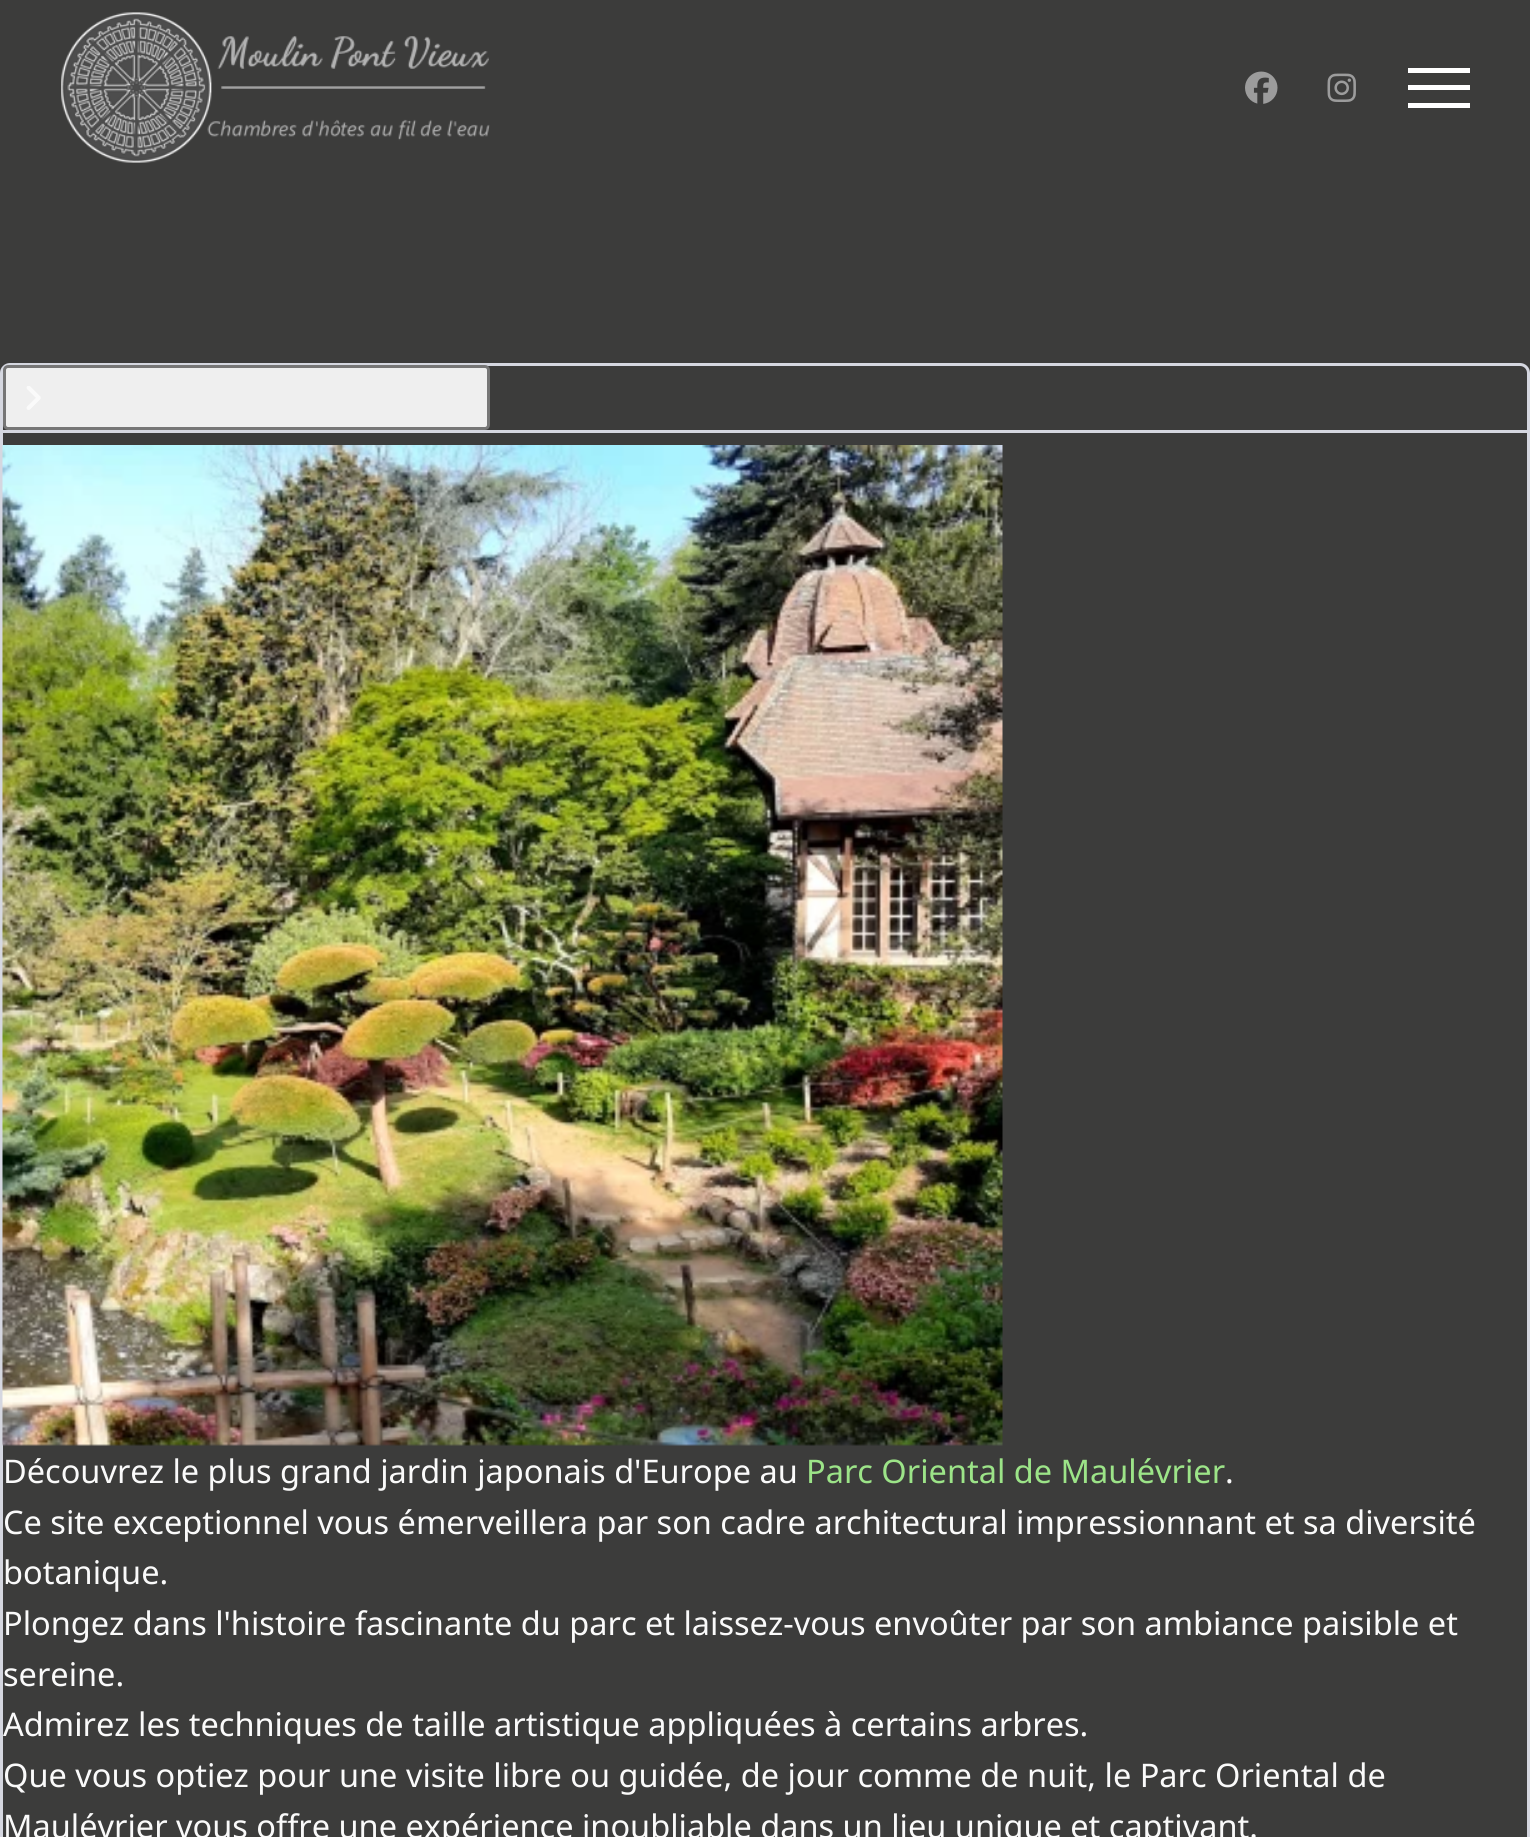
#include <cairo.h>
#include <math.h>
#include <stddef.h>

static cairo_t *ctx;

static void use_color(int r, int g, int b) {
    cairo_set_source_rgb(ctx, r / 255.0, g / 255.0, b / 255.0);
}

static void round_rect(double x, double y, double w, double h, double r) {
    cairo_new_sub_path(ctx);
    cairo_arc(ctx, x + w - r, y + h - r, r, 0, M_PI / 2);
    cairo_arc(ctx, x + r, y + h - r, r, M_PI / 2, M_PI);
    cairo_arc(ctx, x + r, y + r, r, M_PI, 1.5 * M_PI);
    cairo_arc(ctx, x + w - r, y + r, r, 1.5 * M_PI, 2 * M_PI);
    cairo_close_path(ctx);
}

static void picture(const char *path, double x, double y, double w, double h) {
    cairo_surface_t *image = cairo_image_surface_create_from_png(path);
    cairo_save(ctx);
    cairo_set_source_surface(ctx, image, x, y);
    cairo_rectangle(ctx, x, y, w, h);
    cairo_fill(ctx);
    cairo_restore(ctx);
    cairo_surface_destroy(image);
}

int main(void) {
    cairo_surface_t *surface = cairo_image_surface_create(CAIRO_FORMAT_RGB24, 1530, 1837);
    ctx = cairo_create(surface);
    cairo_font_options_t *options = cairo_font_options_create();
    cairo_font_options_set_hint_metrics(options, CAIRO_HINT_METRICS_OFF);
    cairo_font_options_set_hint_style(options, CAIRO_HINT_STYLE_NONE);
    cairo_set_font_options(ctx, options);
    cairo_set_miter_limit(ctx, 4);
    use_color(60, 60, 59);
    cairo_paint(ctx);
    picture("img1.png", 61, 12, 429, 151);
    picture("img2.png", 1245, 71, 33, 33);
    picture("img3.png", 1327, 73, 29, 29);
    use_color(255, 255, 255);
    cairo_rectangle(ctx, 1408, 68, 62, 5);
    cairo_fill(ctx);
    cairo_rectangle(ctx, 1408, 85, 62, 5);
    cairo_fill(ctx);
    cairo_rectangle(ctx, 1408, 103, 62, 5);
    cairo_fill(ctx);
    round_rect(1.5, 364.5, 1527, 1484, 8.5);
    use_color(213, 215, 224);
    cairo_set_line_width(ctx, 3);
    cairo_stroke(ctx);
    use_color(239, 239, 239);
    round_rect(4.5, 366.5, 484, 62, 3.5);
    cairo_fill_preserve(ctx);
    use_color(118, 118, 118);
    cairo_stroke(ctx);
    picture("img4.png", 26, 386, 15, 24);
    use_color(213, 215, 224);
    cairo_rectangle(ctx, 3, 430, 1525, 3);
    cairo_fill(ctx);
    picture("img5.png", 2, 445, 1001, 1001);
    cairo_select_font_face(ctx, "Noto Sans", CAIRO_FONT_SLANT_NORMAL, CAIRO_FONT_WEIGHT_NORMAL);
    cairo_set_font_size(ctx, 32.5);
    use_color(250, 250, 250);
    cairo_move_to(ctx, 3, 1483);
    cairo_show_text(ctx, "Découvrez le plus grand jardin japonais d'Europe au");
    use_color(156, 228, 136);
    cairo_move_to(ctx, 806, 1483);
    cairo_show_text(ctx, "Parc Oriental de Maulévrier");
    use_color(250, 250, 250);
    cairo_move_to(ctx, 1225, 1483);
    cairo_show_text(ctx, ".");
    cairo_move_to(ctx, 3, 1534);
    cairo_show_text(ctx, "Ce site exceptionnel vous émerveillera par son cadre architectural impressionnant et sa diversité");
    cairo_move_to(ctx, 3, 1584);
    cairo_show_text(ctx, "botanique.");
    cairo_move_to(ctx, 3, 1635);
    cairo_show_text(ctx, "Plongez dans l'histoire fascinante du parc et laissez-vous envoûter par son ambiance paisible et");
    cairo_move_to(ctx, 3, 1686);
    cairo_show_text(ctx, "sereine.");
    cairo_move_to(ctx, 3, 1736);
    cairo_show_text(ctx, "Admirez les techniques de taille artistique appliquées à certains arbres.");
    cairo_move_to(ctx, 3, 1787);
    cairo_show_text(ctx, "Que vous optiez pour une visite libre ou guidée, de jour comme de nuit, le Parc Oriental de");
    cairo_move_to(ctx, 3, 1838);
    cairo_show_text(ctx, "Maulévrier vous offre une expérience inoubliable dans un lieu unique et captivant.");
    cairo_surface_write_to_png(surface, "result.png");
    cairo_font_options_destroy(options);
    cairo_destroy(ctx);
    cairo_surface_destroy(surface);
    return 0;
}
